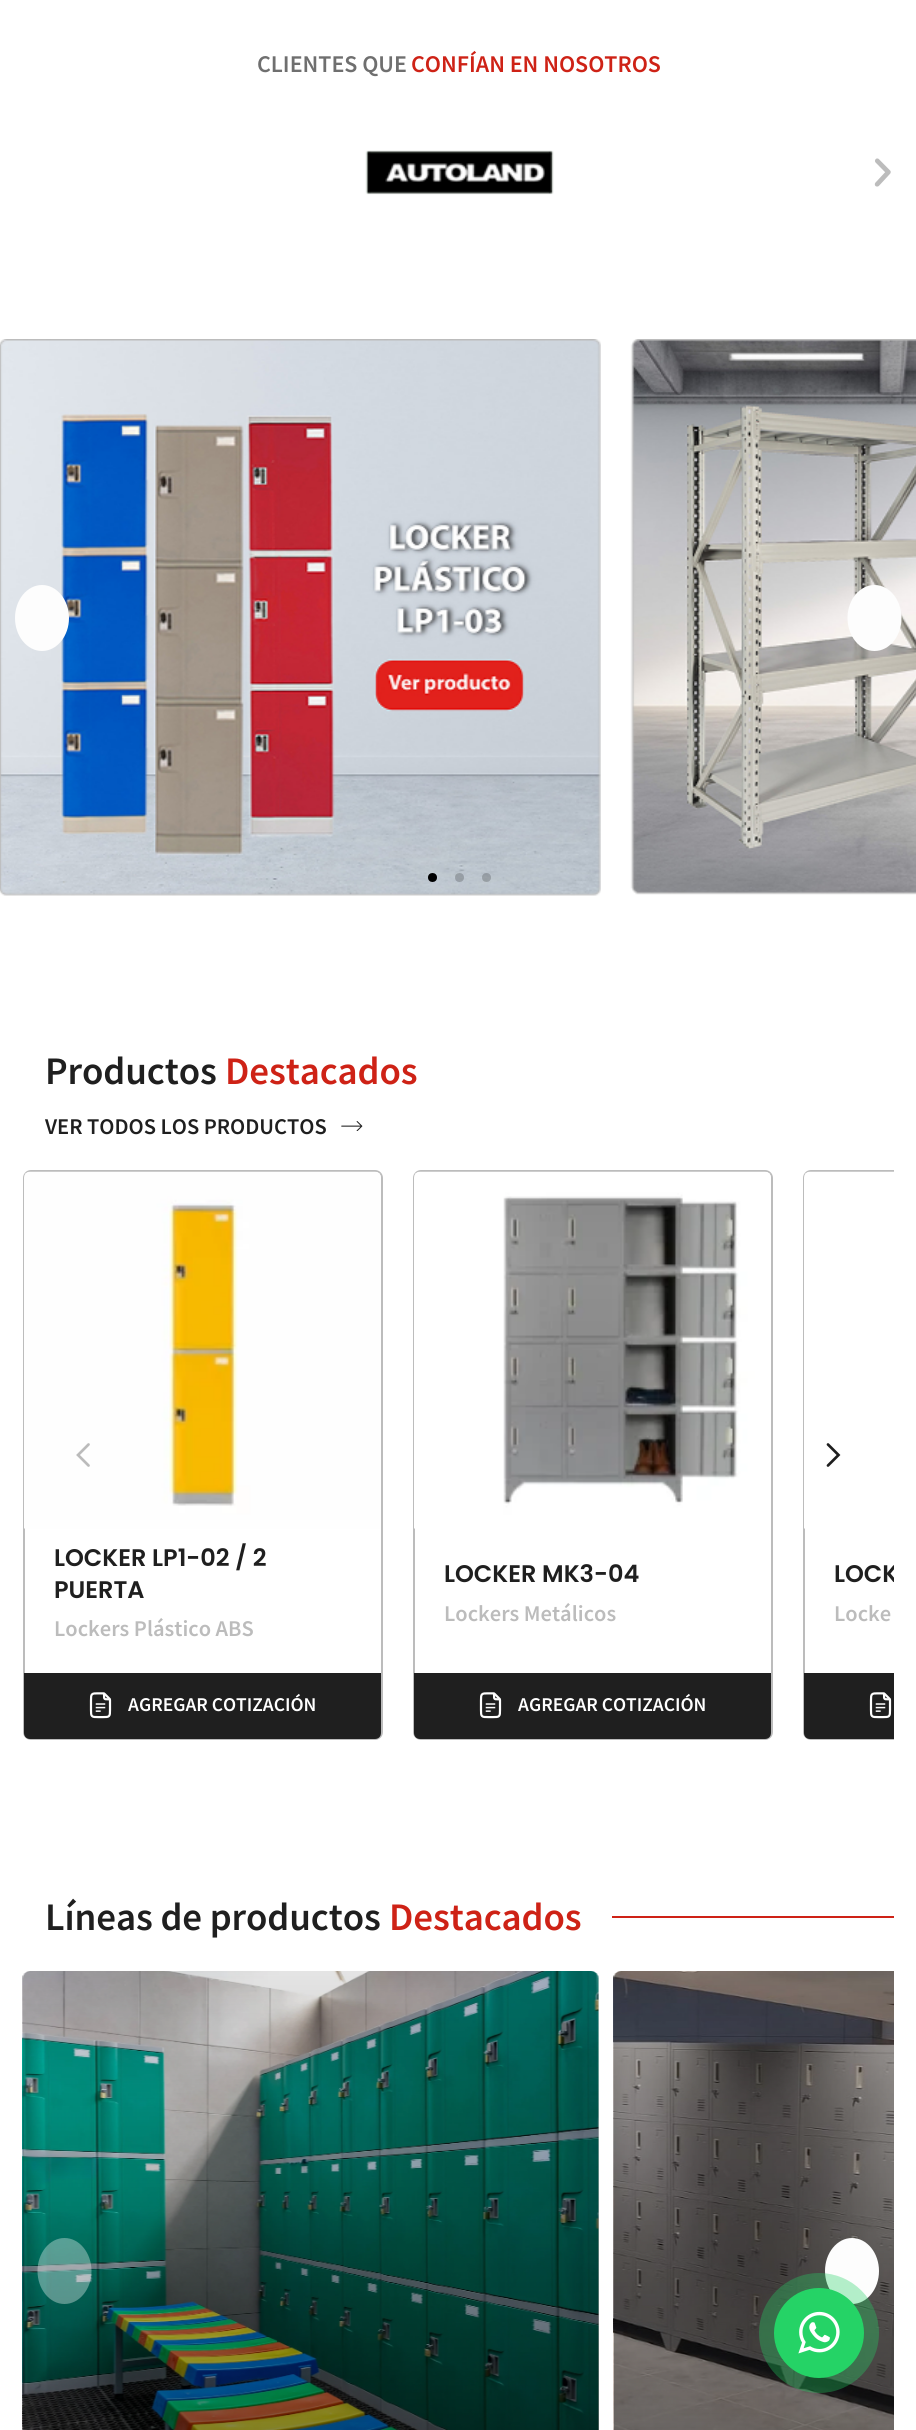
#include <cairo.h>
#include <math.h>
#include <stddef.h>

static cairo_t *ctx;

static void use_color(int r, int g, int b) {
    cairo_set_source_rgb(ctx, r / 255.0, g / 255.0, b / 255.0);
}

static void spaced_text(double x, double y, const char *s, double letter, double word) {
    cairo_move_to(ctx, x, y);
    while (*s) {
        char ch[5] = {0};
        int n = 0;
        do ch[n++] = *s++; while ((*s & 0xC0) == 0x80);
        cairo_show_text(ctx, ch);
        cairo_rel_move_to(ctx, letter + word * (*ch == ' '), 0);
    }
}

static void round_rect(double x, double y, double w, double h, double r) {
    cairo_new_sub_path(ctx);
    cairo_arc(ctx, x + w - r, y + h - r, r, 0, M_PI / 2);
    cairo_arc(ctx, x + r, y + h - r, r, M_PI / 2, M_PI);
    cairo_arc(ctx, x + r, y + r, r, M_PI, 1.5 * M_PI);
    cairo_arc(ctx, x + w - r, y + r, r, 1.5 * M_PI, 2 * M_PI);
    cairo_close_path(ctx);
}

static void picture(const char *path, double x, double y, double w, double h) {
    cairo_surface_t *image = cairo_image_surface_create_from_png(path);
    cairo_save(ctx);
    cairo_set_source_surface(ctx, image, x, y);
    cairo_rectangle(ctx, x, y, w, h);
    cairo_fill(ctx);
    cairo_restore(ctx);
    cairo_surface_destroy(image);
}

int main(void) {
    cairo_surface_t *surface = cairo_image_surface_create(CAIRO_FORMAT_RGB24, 916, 2430);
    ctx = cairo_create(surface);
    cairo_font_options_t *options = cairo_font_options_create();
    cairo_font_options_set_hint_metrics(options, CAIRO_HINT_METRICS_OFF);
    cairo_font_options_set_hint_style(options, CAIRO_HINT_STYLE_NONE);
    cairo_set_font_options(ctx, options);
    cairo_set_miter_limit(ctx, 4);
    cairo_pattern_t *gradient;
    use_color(255, 255, 255);
    cairo_paint(ctx);
    cairo_select_font_face(ctx, "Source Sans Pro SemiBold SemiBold", CAIRO_FONT_SLANT_NORMAL, CAIRO_FONT_WEIGHT_NORMAL);
    cairo_set_font_size(ctx, 24);
    use_color(111, 111, 111);
    cairo_move_to(ctx, 257, 72);
    cairo_show_text(ctx, "CLIENTES QUE");
    use_color(206, 34, 22);
    cairo_move_to(ctx, 411, 72);
    cairo_show_text(ctx, "CONFÍAN EN NOSOTROS");
    picture("img1.png", 365, 150, 189, 45);
    picture("img2.png", 874, 158, 17, 29);
    picture("img3.png", 0, 339, 601, 557);
    picture("img4.png", 630, 339, 286, 556);
    use_color(253, 253, 253);
    cairo_new_path(ctx);
    cairo_move_to(ctx, 42, 585);
    cairo_curve_to(ctx, 57, 585, 69, 600, 69, 618);
    cairo_curve_to(ctx, 69, 636, 57, 651, 42, 651);
    cairo_curve_to(ctx, 27, 651, 15, 636, 15, 618);
    cairo_curve_to(ctx, 15, 600, 27, 585, 42, 585);
    cairo_close_path(ctx);
    cairo_fill(ctx);
    cairo_new_path(ctx);
    cairo_move_to(ctx, 874.5, 585);
    cairo_curve_to(ctx, 889.5, 585, 901.5, 600, 901.5, 618);
    cairo_curve_to(ctx, 901.5, 636, 889.5, 651, 874.5, 651);
    cairo_curve_to(ctx, 859.5, 651, 847.5, 636, 847.5, 618);
    cairo_curve_to(ctx, 847.5, 600, 859.5, 585, 874.5, 585);
    cairo_close_path(ctx);
    cairo_fill(ctx);
    use_color(0, 0, 0);
    cairo_arc(ctx, 432.5, 877.5, 4.5, 0, 2 * M_PI);
    cairo_fill(ctx);
    cairo_set_source_rgba(ctx, 0, 0, 0, 0.2);
    cairo_arc(ctx, 459.5, 877.5, 4.5, 0, 2 * M_PI);
    cairo_fill(ctx);
    cairo_arc(ctx, 486.5, 877.5, 4.5, 0, 2 * M_PI);
    cairo_fill(ctx);
    cairo_set_font_size(ctx, 39);
    use_color(31, 31, 31);
    spaced_text(45, 1084, "Productos", -0.1, 0);
    use_color(206, 34, 22);
    spaced_text(225, 1084, "Destacados", -0.1, 0);
    cairo_set_font_size(ctx, 22.5);
    use_color(31, 31, 31);
    cairo_move_to(ctx, 45, 1134);
    cairo_show_text(ctx, "VER TODOS LOS PRODUCTOS");
    picture("img5.png", 341, 1121, 22, 10);
    round_rect(24, 1171, 358, 568, 7);
    use_color(188, 188, 188);
    cairo_stroke(ctx);
    picture("img6.png", 24, 1171, 357, 358);
    cairo_new_path(ctx);
    cairo_move_to(ctx, 88.5, 1444.5);
    cairo_line_to(ctx, 78, 1455);
    cairo_line_to(ctx, 88.5, 1465.5);
    use_color(187, 187, 187);
    cairo_set_line_width(ctx, 2.7);
    cairo_set_line_cap(ctx, CAIRO_LINE_CAP_ROUND);
    cairo_stroke(ctx);
    cairo_save(ctx);
    cairo_rectangle(ctx, 23, 1170, 871, 570);
    cairo_clip(ctx);
    round_rect(804, 1171, 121, 568, 7);
    use_color(188, 188, 188);
    cairo_set_line_width(ctx, 2);
    cairo_set_line_cap(ctx, CAIRO_LINE_CAP_BUTT);
    cairo_stroke(ctx);
    cairo_restore(ctx);
    picture("img9.png", 804, 1171, 90, 358);
    cairo_new_path(ctx);
    cairo_move_to(ctx, 828, 1444.5);
    cairo_line_to(ctx, 838.5, 1455);
    cairo_line_to(ctx, 828, 1465.5);
    use_color(30, 30, 30);
    cairo_stroke(ctx);
    cairo_select_font_face(ctx, "Poppins SemiBold", CAIRO_FONT_SLANT_NORMAL, CAIRO_FONT_WEIGHT_NORMAL);
    cairo_set_font_size(ctx, 24);
    use_color(31, 31, 31);
    cairo_move_to(ctx, 54, 1566);
    cairo_show_text(ctx, "LOCKER LP1-02 / 2");
    cairo_move_to(ctx, 54, 1598);
    cairo_show_text(ctx, "PUERTA");
    cairo_select_font_face(ctx, "Source Sans Pro SemiBold SemiBold", CAIRO_FONT_SLANT_NORMAL, CAIRO_FONT_WEIGHT_NORMAL);
    cairo_set_font_size(ctx, 22.5);
    use_color(188, 188, 188);
    cairo_move_to(ctx, 54, 1636);
    cairo_show_text(ctx, "Lockers Plástico ABS");
    use_color(31, 31, 31);
    cairo_new_path(ctx);
    cairo_move_to(ctx, 24, 1673);
    cairo_line_to(ctx, 381, 1673);
    cairo_line_to(ctx, 381, 1733);
    cairo_curve_to(ctx, 381, 1736.5, 378.5, 1739, 375, 1739);
    cairo_line_to(ctx, 30, 1739);
    cairo_curve_to(ctx, 26.5, 1739, 24, 1736.5, 24, 1733);
    cairo_close_path(ctx);
    cairo_fill(ctx);
    picture("img7.png", 89, 1692, 23, 27);
    cairo_set_font_size(ctx, 19.5);
    use_color(255, 255, 255);
    cairo_move_to(ctx, 128, 1711);
    cairo_show_text(ctx, "AGREGAR COTIZACIÓN");
    round_rect(414, 1171, 358, 568, 7);
    use_color(188, 188, 188);
    cairo_set_line_width(ctx, 2);
    cairo_set_line_cap(ctx, CAIRO_LINE_CAP_BUTT);
    cairo_stroke(ctx);
    picture("img8.png", 414, 1171, 357, 358);
    cairo_select_font_face(ctx, "Poppins SemiBold", CAIRO_FONT_SLANT_NORMAL, CAIRO_FONT_WEIGHT_NORMAL);
    cairo_set_font_size(ctx, 24);
    use_color(31, 31, 31);
    cairo_move_to(ctx, 444, 1582);
    cairo_show_text(ctx, "LOCKER MK3-04");
    cairo_select_font_face(ctx, "Source Sans Pro SemiBold SemiBold", CAIRO_FONT_SLANT_NORMAL, CAIRO_FONT_WEIGHT_NORMAL);
    cairo_set_font_size(ctx, 22.5);
    use_color(188, 188, 188);
    cairo_move_to(ctx, 444, 1621);
    cairo_show_text(ctx, "Lockers Metálicos");
    use_color(31, 31, 31);
    cairo_new_path(ctx);
    cairo_move_to(ctx, 414, 1673);
    cairo_line_to(ctx, 771, 1673);
    cairo_line_to(ctx, 771, 1733);
    cairo_curve_to(ctx, 771, 1736.5, 768.5, 1739, 765, 1739);
    cairo_line_to(ctx, 420, 1739);
    cairo_curve_to(ctx, 416.5, 1739, 414, 1736.5, 414, 1733);
    cairo_close_path(ctx);
    cairo_fill(ctx);
    picture("img7.png", 479, 1692, 23, 27);
    cairo_set_font_size(ctx, 19.5);
    use_color(255, 255, 255);
    cairo_move_to(ctx, 518, 1711);
    cairo_show_text(ctx, "AGREGAR COTIZACIÓN");
    cairo_save(ctx);
    cairo_rectangle(ctx, 23, 1170, 871, 570);
    cairo_clip(ctx);
    cairo_select_font_face(ctx, "Poppins SemiBold", CAIRO_FONT_SLANT_NORMAL, CAIRO_FONT_WEIGHT_NORMAL);
    cairo_set_font_size(ctx, 24);
    use_color(31, 31, 31);
    cairo_move_to(ctx, 834, 1582);
    cairo_show_text(ctx, "LOCK");
    cairo_restore(ctx);
    cairo_set_font_size(ctx, 22.5);
    use_color(188, 188, 188);
    cairo_move_to(ctx, 834, 1621);
    cairo_show_text(ctx, "Locke");
    use_color(31, 31, 31);
    cairo_new_path(ctx);
    cairo_move_to(ctx, 804, 1673);
    cairo_line_to(ctx, 894, 1673);
    cairo_line_to(ctx, 894, 1739);
    cairo_line_to(ctx, 810, 1739);
    cairo_curve_to(ctx, 806.5, 1739, 804, 1736.5, 804, 1733);
    cairo_close_path(ctx);
    cairo_fill(ctx);
    picture("img7.png", 869, 1692, 23, 27);
    cairo_set_font_size(ctx, 39);
    spaced_text(45, 1930, "Líneas de productos", -0.1, 0);
    use_color(206, 34, 22);
    spaced_text(389, 1930, "Destacados", -0.1, 0);
    cairo_rectangle(ctx, 612, 1916, 282, 2);
    cairo_fill(ctx);
    picture("img10.png", 22, 1971, 577, 459);
    gradient = cairo_pattern_create_linear(311, 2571, 311, 1971);
    cairo_pattern_add_color_stop_rgba(gradient, 0, 0, 0, 0, 0.6);
    cairo_pattern_add_color_stop_rgba(gradient, 1, 0, 0, 0, 0.1);
    cairo_set_source(ctx, gradient);
    cairo_pattern_destroy(gradient);
    round_rect(23, 1971, 576, 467, 8);
    cairo_fill(ctx);
    picture("img11.png", 613, 1971, 281, 459);
    gradient = cairo_pattern_create_linear(902, 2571, 902, 1971);
    cairo_pattern_add_color_stop_rgba(gradient, 0, 0, 0, 0, 0.6);
    cairo_pattern_add_color_stop_rgba(gradient, 1, 0, 0, 0, 0.1);
    cairo_set_source(ctx, gradient);
    cairo_pattern_destroy(gradient);
    cairo_new_path(ctx);
    cairo_move_to(ctx, 622, 1971);
    cairo_line_to(ctx, 894, 1971);
    cairo_line_to(ctx, 894, 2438);
    cairo_line_to(ctx, 622, 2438);
    cairo_curve_to(ctx, 617.5, 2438, 614, 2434.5, 614, 2430);
    cairo_line_to(ctx, 614, 1979);
    cairo_curve_to(ctx, 614, 1974.5, 617.5, 1971, 622, 1971);
    cairo_close_path(ctx);
    cairo_fill(ctx);
    cairo_set_source_rgba(ctx, 0.992, 0.992, 0.992, 0.35);
    cairo_new_path(ctx);
    cairo_move_to(ctx, 64.5, 2238);
    cairo_curve_to(ctx, 79.5, 2238, 91.5, 2253, 91.5, 2271);
    cairo_curve_to(ctx, 91.5, 2289, 79.5, 2304, 64.5, 2304);
    cairo_curve_to(ctx, 49.5, 2304, 37.5, 2289, 37.5, 2271);
    cairo_curve_to(ctx, 37.5, 2253, 49.5, 2238, 64.5, 2238);
    cairo_close_path(ctx);
    cairo_fill(ctx);
    use_color(253, 253, 253);
    cairo_new_path(ctx);
    cairo_move_to(ctx, 852, 2238);
    cairo_curve_to(ctx, 867, 2238, 879, 2253, 879, 2271);
    cairo_curve_to(ctx, 879, 2289, 867, 2304, 852, 2304);
    cairo_curve_to(ctx, 837, 2304, 825, 2289, 825, 2271);
    cairo_curve_to(ctx, 825, 2253, 837, 2238, 852, 2238);
    cairo_close_path(ctx);
    cairo_fill(ctx);
    cairo_set_source_rgba(ctx, 0.145, 0.827, 0.4, 0.34);
    cairo_arc(ctx, 819, 2333, 60, 0, 2 * M_PI);
    cairo_fill(ctx);
    use_color(37, 211, 102);
    cairo_arc(ctx, 819, 2333, 45, 0, 2 * M_PI);
    cairo_fill(ctx);
    picture("img12.png", 798, 2311, 42, 43);
    cairo_surface_write_to_png(surface, "result.png");
    cairo_font_options_destroy(options);
    cairo_destroy(ctx);
    cairo_surface_destroy(surface);
    return 0;
}
